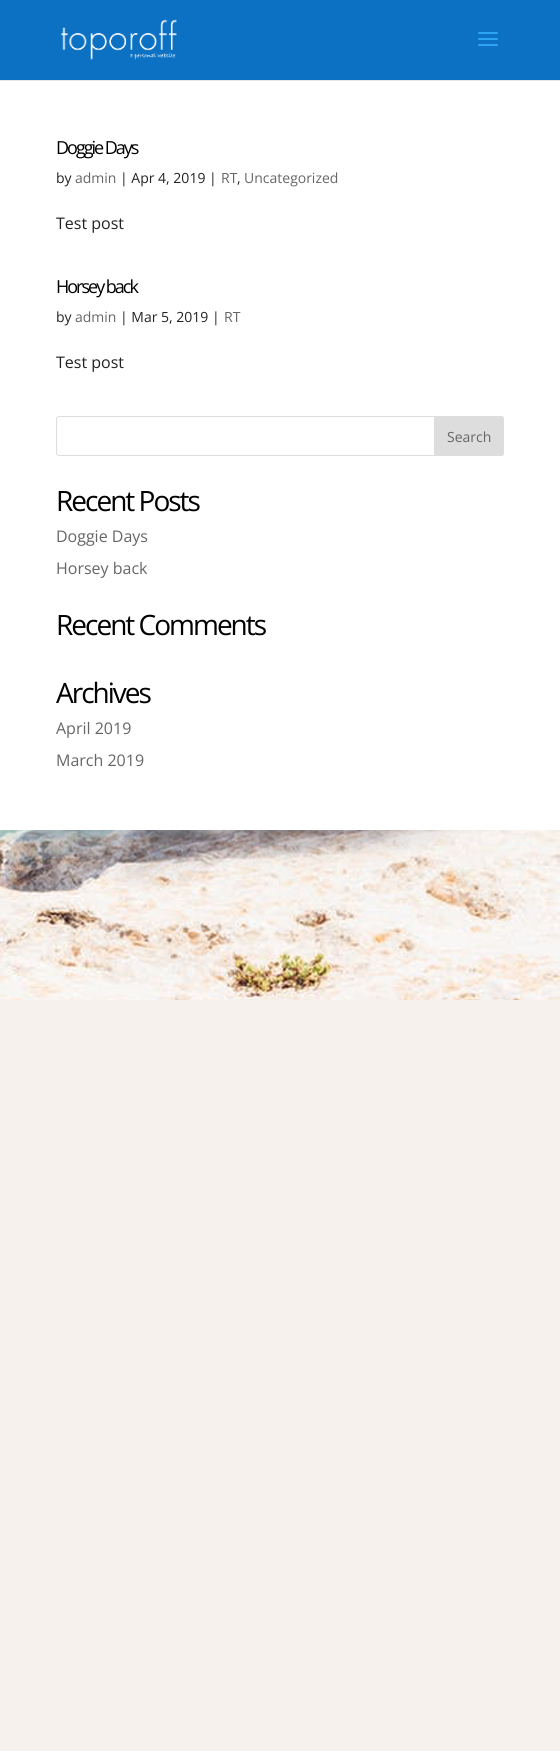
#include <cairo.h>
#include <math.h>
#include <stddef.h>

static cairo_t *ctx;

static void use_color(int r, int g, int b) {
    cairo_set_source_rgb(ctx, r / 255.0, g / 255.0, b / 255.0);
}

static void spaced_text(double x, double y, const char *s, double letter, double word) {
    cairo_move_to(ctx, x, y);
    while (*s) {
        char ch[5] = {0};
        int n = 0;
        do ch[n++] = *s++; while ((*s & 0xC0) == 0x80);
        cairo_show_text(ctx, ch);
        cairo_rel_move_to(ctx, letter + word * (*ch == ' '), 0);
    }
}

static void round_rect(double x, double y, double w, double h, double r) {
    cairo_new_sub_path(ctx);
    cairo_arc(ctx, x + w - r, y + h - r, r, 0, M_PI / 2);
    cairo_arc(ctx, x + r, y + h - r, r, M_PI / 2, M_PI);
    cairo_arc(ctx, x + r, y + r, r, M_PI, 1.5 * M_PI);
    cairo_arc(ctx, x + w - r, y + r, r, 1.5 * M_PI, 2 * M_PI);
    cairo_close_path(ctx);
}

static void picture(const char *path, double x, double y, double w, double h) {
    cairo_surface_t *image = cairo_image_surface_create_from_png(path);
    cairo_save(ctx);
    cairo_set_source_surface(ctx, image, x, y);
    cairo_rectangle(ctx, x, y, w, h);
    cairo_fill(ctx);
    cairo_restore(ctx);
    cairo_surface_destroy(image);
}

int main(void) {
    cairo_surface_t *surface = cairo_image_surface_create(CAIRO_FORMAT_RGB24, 560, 1751);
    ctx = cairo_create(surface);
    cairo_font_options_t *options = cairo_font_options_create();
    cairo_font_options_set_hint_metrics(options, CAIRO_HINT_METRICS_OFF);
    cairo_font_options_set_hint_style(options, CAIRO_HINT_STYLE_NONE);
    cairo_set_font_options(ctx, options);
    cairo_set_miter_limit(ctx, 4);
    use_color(246, 241, 237);
    cairo_paint(ctx);
    picture("img1.png", 0, 830, 560, 170);
    use_color(230, 230, 230);
    cairo_rectangle(ctx, 0, 80, 560, 1);
    cairo_fill(ctx);
    use_color(12, 113, 195);
    cairo_rectangle(ctx, 0, 0, 560, 80);
    cairo_fill(ctx);
    picture("img2.png", 60, 19, 117, 41);
    picture("img3.png", 478, 32, 20, 14);
    use_color(255, 255, 255);
    cairo_rectangle(ctx, 0, 81, 560, 749);
    cairo_fill(ctx);
    cairo_select_font_face(ctx, "Open Sans", CAIRO_FONT_SLANT_NORMAL, CAIRO_FONT_WEIGHT_NORMAL);
    cairo_set_font_size(ctx, 18);
    use_color(0, 0, 0);
    spaced_text(56, 154, "Doggie Days", -2, 0);
    cairo_set_font_size(ctx, 14);
    use_color(35, 35, 35);
    cairo_move_to(ctx, 56, 183);
    cairo_show_text(ctx, "by");
    use_color(102, 102, 102);
    cairo_move_to(ctx, 75, 183);
    cairo_show_text(ctx, "admin");
    use_color(35, 35, 35);
    cairo_move_to(ctx, 120, 183);
    cairo_show_text(ctx, "| Apr 4, 2019 |");
    use_color(102, 102, 102);
    cairo_move_to(ctx, 221, 183);
    cairo_show_text(ctx, "RT");
    use_color(35, 35, 35);
    cairo_move_to(ctx, 237, 183);
    cairo_show_text(ctx, ",");
    use_color(102, 102, 102);
    cairo_move_to(ctx, 244, 183);
    cairo_show_text(ctx, "Uncategorized");
    cairo_set_font_size(ctx, 16);
    use_color(35, 35, 35);
    cairo_move_to(ctx, 56, 229);
    cairo_show_text(ctx, "Test post");
    cairo_set_font_size(ctx, 18);
    use_color(0, 0, 0);
    spaced_text(56, 293, "Horsey back", -2, 0);
    cairo_set_font_size(ctx, 14);
    use_color(35, 35, 35);
    cairo_move_to(ctx, 56, 322);
    cairo_show_text(ctx, "by");
    use_color(102, 102, 102);
    cairo_move_to(ctx, 75, 322);
    cairo_show_text(ctx, "admin");
    use_color(35, 35, 35);
    cairo_move_to(ctx, 120, 322);
    cairo_show_text(ctx, "| Mar 5, 2019 |");
    use_color(102, 102, 102);
    cairo_move_to(ctx, 224, 322);
    cairo_show_text(ctx, "RT");
    cairo_set_font_size(ctx, 16);
    use_color(35, 35, 35);
    cairo_move_to(ctx, 56, 368);
    cairo_show_text(ctx, "Test post");
    round_rect(56.5, 416.5, 447, 39, 2.5);
    use_color(221, 221, 221);
    cairo_set_line_width(ctx, 1);
    cairo_stroke(ctx);
    cairo_new_path(ctx);
    cairo_move_to(ctx, 434.5, 416.5);
    cairo_line_to(ctx, 501, 416.5);
    cairo_curve_to(ctx, 502.5, 416.5, 503.5, 417.5, 503.5, 419);
    cairo_line_to(ctx, 503.5, 453);
    cairo_curve_to(ctx, 503.5, 454.5, 502.5, 455.5, 501, 455.5);
    cairo_line_to(ctx, 434.5, 455.5);
    cairo_close_path(ctx);
    cairo_fill_preserve(ctx);
    cairo_stroke(ctx);
    cairo_set_font_size(ctx, 14);
    use_color(102, 102, 102);
    cairo_move_to(ctx, 447, 442);
    cairo_show_text(ctx, "Search");
    cairo_set_font_size(ctx, 28);
    use_color(0, 0, 0);
    spaced_text(56, 511, "Recent Posts", -2, 0);
    cairo_set_font_size(ctx, 16);
    use_color(102, 102, 102);
    cairo_move_to(ctx, 56, 542);
    cairo_show_text(ctx, "Doggie Days");
    cairo_move_to(ctx, 56, 574);
    cairo_show_text(ctx, "Horsey back");
    cairo_set_font_size(ctx, 28);
    use_color(0, 0, 0);
    spaced_text(56, 635, "Recent Comments", -2, 0);
    spaced_text(56, 703, "Archives", -2, 0);
    cairo_set_font_size(ctx, 16);
    use_color(102, 102, 102);
    cairo_move_to(ctx, 56, 734);
    cairo_show_text(ctx, "April 2019");
    cairo_move_to(ctx, 56, 766);
    cairo_show_text(ctx, "March 2019");
    cairo_surface_write_to_png(surface, "result.png");
    cairo_font_options_destroy(options);
    cairo_destroy(ctx);
    cairo_surface_destroy(surface);
    return 0;
}
